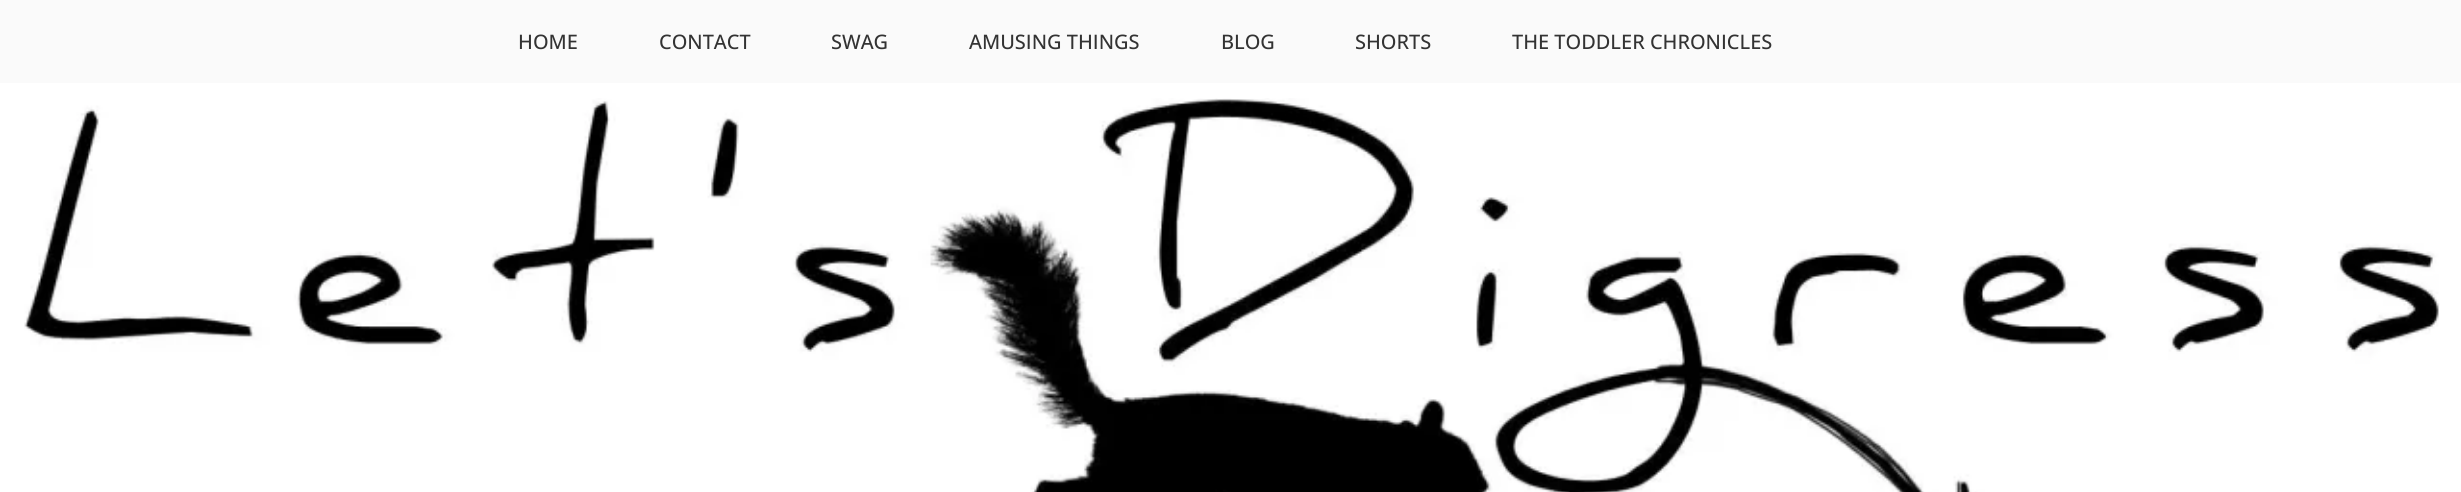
#include <cairo.h>
#include <math.h>
#include <stddef.h>

static cairo_t *ctx;

static void use_color(int r, int g, int b) {
    cairo_set_source_rgb(ctx, r / 255.0, g / 255.0, b / 255.0);
}

static void picture(const char *path, double x, double y, double w, double h) {
    cairo_surface_t *image = cairo_image_surface_create_from_png(path);
    cairo_save(ctx);
    cairo_set_source_surface(ctx, image, x, y);
    cairo_rectangle(ctx, x, y, w, h);
    cairo_fill(ctx);
    cairo_restore(ctx);
    cairo_surface_destroy(image);
}

int main(void) {
    cairo_surface_t *surface = cairo_image_surface_create(CAIRO_FORMAT_RGB24, 2461, 492);
    ctx = cairo_create(surface);
    cairo_font_options_t *options = cairo_font_options_create();
    cairo_font_options_set_hint_metrics(options, CAIRO_HINT_METRICS_OFF);
    cairo_font_options_set_hint_style(options, CAIRO_HINT_STYLE_NONE);
    cairo_set_font_options(ctx, options);
    cairo_set_miter_limit(ctx, 4);
    use_color(255, 255, 255);
    cairo_paint(ctx);
    use_color(250, 250, 250);
    cairo_rectangle(ctx, 0, 0, 2461, 83);
    cairo_fill(ctx);
    cairo_select_font_face(ctx, "Open Sans Medium", CAIRO_FONT_SLANT_NORMAL, CAIRO_FONT_WEIGHT_NORMAL);
    cairo_set_font_size(ctx, 20);
    use_color(51, 51, 51);
    cairo_move_to(ctx, 518, 49);
    cairo_show_text(ctx, "HOME");
    cairo_move_to(ctx, 659, 49);
    cairo_show_text(ctx, "CONTACT");
    cairo_move_to(ctx, 831, 49);
    cairo_show_text(ctx, "SWAG");
    cairo_move_to(ctx, 969, 49);
    cairo_show_text(ctx, "AMUSING THINGS");
    cairo_move_to(ctx, 1221, 49);
    cairo_show_text(ctx, "BLOG");
    cairo_move_to(ctx, 1355, 49);
    cairo_show_text(ctx, "SHORTS");
    cairo_move_to(ctx, 1512, 49);
    cairo_show_text(ctx, "THE TODDLER CHRONICLES");
    picture("img1.png", 24, 98, 2416, 394);
    cairo_surface_write_to_png(surface, "result.png");
    cairo_font_options_destroy(options);
    cairo_destroy(ctx);
    cairo_surface_destroy(surface);
    return 0;
}
